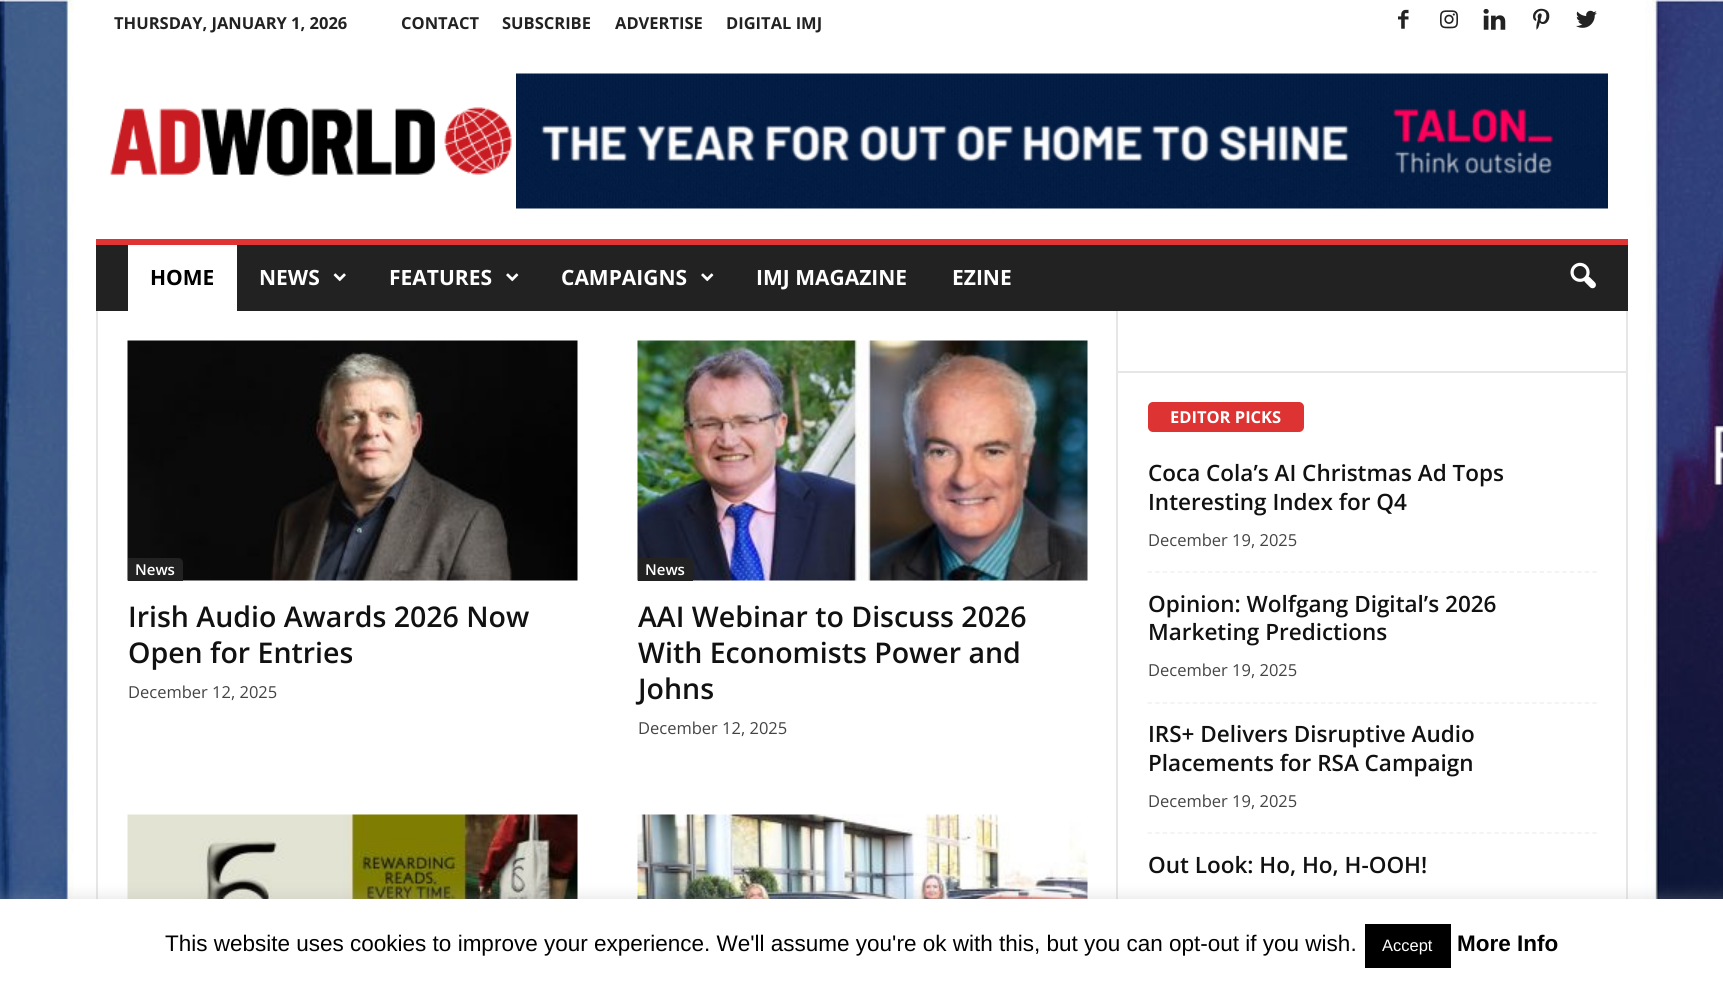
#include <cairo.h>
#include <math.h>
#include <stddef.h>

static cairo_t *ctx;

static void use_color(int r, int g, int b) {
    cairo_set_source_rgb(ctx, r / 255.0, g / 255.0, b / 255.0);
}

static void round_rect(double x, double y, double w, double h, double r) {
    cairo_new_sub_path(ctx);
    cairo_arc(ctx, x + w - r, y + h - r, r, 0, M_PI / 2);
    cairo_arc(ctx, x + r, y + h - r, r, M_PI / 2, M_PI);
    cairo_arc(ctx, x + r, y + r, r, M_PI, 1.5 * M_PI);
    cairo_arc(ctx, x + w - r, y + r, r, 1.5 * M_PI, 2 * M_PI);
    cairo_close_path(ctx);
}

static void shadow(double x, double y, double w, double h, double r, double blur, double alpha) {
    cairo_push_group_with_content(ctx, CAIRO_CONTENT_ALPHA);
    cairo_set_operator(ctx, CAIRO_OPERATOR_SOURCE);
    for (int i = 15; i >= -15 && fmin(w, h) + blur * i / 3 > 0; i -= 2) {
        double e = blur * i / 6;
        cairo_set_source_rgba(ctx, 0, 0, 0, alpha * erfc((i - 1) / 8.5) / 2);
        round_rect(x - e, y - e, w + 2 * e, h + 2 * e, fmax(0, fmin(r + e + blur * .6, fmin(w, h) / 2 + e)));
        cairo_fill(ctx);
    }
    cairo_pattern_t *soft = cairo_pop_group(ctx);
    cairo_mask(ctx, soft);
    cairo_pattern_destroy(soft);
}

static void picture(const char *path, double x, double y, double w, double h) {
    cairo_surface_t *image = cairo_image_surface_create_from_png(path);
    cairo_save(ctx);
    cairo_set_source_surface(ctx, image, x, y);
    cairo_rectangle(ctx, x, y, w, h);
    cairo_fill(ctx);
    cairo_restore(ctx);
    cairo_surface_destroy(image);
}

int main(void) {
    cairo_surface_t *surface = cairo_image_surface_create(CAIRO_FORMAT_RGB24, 1723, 985);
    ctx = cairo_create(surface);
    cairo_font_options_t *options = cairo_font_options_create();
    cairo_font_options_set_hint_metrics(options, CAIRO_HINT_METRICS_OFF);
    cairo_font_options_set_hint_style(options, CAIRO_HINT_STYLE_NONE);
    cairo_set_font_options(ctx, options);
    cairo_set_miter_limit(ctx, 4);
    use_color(255, 255, 255);
    cairo_paint(ctx);
    picture("img1.png", 0, 0, 1723, 899);
    cairo_select_font_face(ctx, "Open Sans", CAIRO_FONT_SLANT_NORMAL, CAIRO_FONT_WEIGHT_BOLD);
    cairo_set_font_size(ctx, 16.5);
    use_color(34, 34, 34);
    cairo_move_to(ctx, 114, 29);
    cairo_show_text(ctx, "THURSDAY, JANUARY 1, 2026");
    cairo_move_to(ctx, 401, 29);
    cairo_show_text(ctx, "CONTACT");
    cairo_move_to(ctx, 502, 29);
    cairo_show_text(ctx, "SUBSCRIBE");
    cairo_move_to(ctx, 615, 29);
    cairo_show_text(ctx, "ADVERTISE");
    cairo_move_to(ctx, 726, 29);
    cairo_show_text(ctx, "DIGITAL IMJ");
    picture("img2.png", 1398, 9, 11, 20);
    picture("img3.png", 1440, 10, 18, 19);
    picture("img4.png", 1483, 8, 23, 22);
    picture("img5.png", 1533, 8, 17, 22);
    picture("img6.png", 1576, 10, 21, 18);
    picture("img7.png", 110, 107, 402, 70);
    picture("img8.png", 516, 73, 1092, 136);
    cairo_rectangle(ctx, 96, 245, 1532, 66);
    cairo_fill(ctx);
    use_color(222, 52, 52);
    cairo_rectangle(ctx, 96, 239, 1532, 6);
    cairo_fill(ctx);
    use_color(255, 255, 255);
    cairo_rectangle(ctx, 128, 245, 109, 66);
    cairo_fill(ctx);
    cairo_set_font_size(ctx, 21);
    use_color(0, 0, 0);
    cairo_move_to(ctx, 150, 285);
    cairo_show_text(ctx, "HOME");
    use_color(255, 255, 255);
    cairo_move_to(ctx, 259, 285);
    cairo_show_text(ctx, "NEWS");
    picture("img9.png", 333, 273, 13, 9);
    cairo_move_to(ctx, 389, 285);
    cairo_show_text(ctx, "FEATURES");
    picture("img10.png", 506, 273, 13, 9);
    cairo_move_to(ctx, 561, 285);
    cairo_show_text(ctx, "CAMPAIGNS");
    picture("img10.png", 701, 273, 13, 9);
    cairo_move_to(ctx, 756, 285);
    cairo_show_text(ctx, "IMJ MAGAZINE");
    cairo_move_to(ctx, 952, 285);
    cairo_show_text(ctx, "EZINE");
    picture("img11.png", 1570, 262, 26, 27);
    use_color(230, 230, 230);
    cairo_rectangle(ctx, 96, 311, 2, 588);
    cairo_fill(ctx);
    picture("img12.png", 127, 340, 451, 241);
    use_color(34, 34, 34);
    cairo_new_path(ctx);
    cairo_move_to(ctx, 128, 558);
    cairo_line_to(ctx, 178, 558);
    cairo_curve_to(ctx, 181, 558, 183, 560, 183, 563);
    cairo_line_to(ctx, 183, 581);
    cairo_line_to(ctx, 128, 581);
    cairo_close_path(ctx);
    cairo_fill(ctx);
    cairo_select_font_face(ctx, "Open Sans SemiBold", CAIRO_FONT_SLANT_NORMAL, CAIRO_FONT_WEIGHT_NORMAL);
    cairo_set_font_size(ctx, 15);
    use_color(255, 255, 255);
    cairo_move_to(ctx, 135, 575);
    cairo_show_text(ctx, "News");
    cairo_set_font_size(ctx, 28.5);
    use_color(17, 17, 17);
    cairo_move_to(ctx, 128, 627);
    cairo_show_text(ctx, "Irish Audio Awards 2026 Now");
    cairo_move_to(ctx, 128, 663);
    cairo_show_text(ctx, "Open for Entries");
    cairo_select_font_face(ctx, "Open Sans", CAIRO_FONT_SLANT_NORMAL, CAIRO_FONT_WEIGHT_NORMAL);
    cairo_set_font_size(ctx, 16.5);
    use_color(68, 68, 68);
    cairo_move_to(ctx, 128, 698);
    cairo_show_text(ctx, "December 12, 2025");
    picture("img13.png", 637, 340, 451, 241);
    use_color(34, 34, 34);
    cairo_new_path(ctx);
    cairo_move_to(ctx, 638, 558);
    cairo_line_to(ctx, 688, 558);
    cairo_curve_to(ctx, 691, 558, 693, 560, 693, 563);
    cairo_line_to(ctx, 693, 581);
    cairo_line_to(ctx, 638, 581);
    cairo_close_path(ctx);
    cairo_fill(ctx);
    cairo_select_font_face(ctx, "Open Sans SemiBold", CAIRO_FONT_SLANT_NORMAL, CAIRO_FONT_WEIGHT_NORMAL);
    cairo_set_font_size(ctx, 15);
    use_color(255, 255, 255);
    cairo_move_to(ctx, 645, 575);
    cairo_show_text(ctx, "News");
    cairo_set_font_size(ctx, 28.5);
    use_color(17, 17, 17);
    cairo_move_to(ctx, 638, 627);
    cairo_show_text(ctx, "AAI Webinar to Discuss 2026");
    cairo_move_to(ctx, 638, 663);
    cairo_show_text(ctx, "With Economists Power and");
    cairo_move_to(ctx, 638, 699);
    cairo_show_text(ctx, "Johns");
    cairo_select_font_face(ctx, "Open Sans", CAIRO_FONT_SLANT_NORMAL, CAIRO_FONT_WEIGHT_NORMAL);
    cairo_set_font_size(ctx, 16.5);
    use_color(68, 68, 68);
    cairo_move_to(ctx, 638, 734);
    cairo_show_text(ctx, "December 12, 2025");
    picture("img14.png", 127, 814, 451, 85);
    picture("img15.png", 637, 814, 451, 85);
    use_color(230, 230, 230);
    cairo_rectangle(ctx, 1116, 311, 2, 588);
    cairo_fill(ctx);
    cairo_rectangle(ctx, 1118, 371, 508, 2);
    cairo_fill(ctx);
    use_color(221, 51, 51);
    round_rect(1148, 402, 156, 30, 5);
    cairo_fill(ctx);
    cairo_select_font_face(ctx, "Open Sans", CAIRO_FONT_SLANT_NORMAL, CAIRO_FONT_WEIGHT_BOLD);
    use_color(255, 255, 255);
    cairo_move_to(ctx, 1170, 423);
    cairo_show_text(ctx, "EDITOR PICKS");
    cairo_new_path(ctx);
    cairo_move_to(ctx, 1147.5, 572);
    cairo_line_to(ctx, 1597.5, 572);
    use_color(241, 241, 241);
    cairo_set_line_width(ctx, 1.5);
    cairo_set_dash(ctx, (double[]){4.5, 3.04}, 2, 0);
    cairo_stroke(ctx);
    cairo_select_font_face(ctx, "Open Sans SemiBold", CAIRO_FONT_SLANT_NORMAL, CAIRO_FONT_WEIGHT_NORMAL);
    cairo_set_font_size(ctx, 22.5);
    use_color(17, 17, 17);
    cairo_move_to(ctx, 1148, 481);
    cairo_show_text(ctx, "Coca Cola’s AI Christmas Ad Tops");
    cairo_move_to(ctx, 1148, 510);
    cairo_show_text(ctx, "Interesting Index for Q4");
    cairo_select_font_face(ctx, "Open Sans", CAIRO_FONT_SLANT_NORMAL, CAIRO_FONT_WEIGHT_NORMAL);
    cairo_set_font_size(ctx, 16.5);
    use_color(68, 68, 68);
    cairo_move_to(ctx, 1148, 546);
    cairo_show_text(ctx, "December 19, 2025");
    cairo_new_path(ctx);
    cairo_move_to(ctx, 1147.5, 703);
    cairo_line_to(ctx, 1597.5, 703);
    use_color(241, 241, 241);
    cairo_stroke(ctx);
    cairo_select_font_face(ctx, "Open Sans SemiBold", CAIRO_FONT_SLANT_NORMAL, CAIRO_FONT_WEIGHT_NORMAL);
    cairo_set_font_size(ctx, 22.5);
    use_color(17, 17, 17);
    cairo_move_to(ctx, 1148, 612);
    cairo_show_text(ctx, "Opinion: Wolfgang Digital’s 2026");
    cairo_move_to(ctx, 1148, 640);
    cairo_show_text(ctx, "Marketing Predictions");
    cairo_select_font_face(ctx, "Open Sans", CAIRO_FONT_SLANT_NORMAL, CAIRO_FONT_WEIGHT_NORMAL);
    cairo_set_font_size(ctx, 16.5);
    use_color(68, 68, 68);
    cairo_move_to(ctx, 1148, 676);
    cairo_show_text(ctx, "December 19, 2025");
    cairo_new_path(ctx);
    cairo_move_to(ctx, 1147.5, 833);
    cairo_line_to(ctx, 1597.5, 833);
    use_color(241, 241, 241);
    cairo_stroke(ctx);
    cairo_select_font_face(ctx, "Open Sans SemiBold", CAIRO_FONT_SLANT_NORMAL, CAIRO_FONT_WEIGHT_NORMAL);
    cairo_set_font_size(ctx, 22.5);
    use_color(17, 17, 17);
    cairo_move_to(ctx, 1148, 742);
    cairo_show_text(ctx, "IRS+ Delivers Disruptive Audio");
    cairo_move_to(ctx, 1148, 771);
    cairo_show_text(ctx, "Placements for RSA Campaign");
    cairo_select_font_face(ctx, "Open Sans", CAIRO_FONT_SLANT_NORMAL, CAIRO_FONT_WEIGHT_NORMAL);
    cairo_set_font_size(ctx, 16.5);
    use_color(68, 68, 68);
    cairo_move_to(ctx, 1148, 807);
    cairo_show_text(ctx, "December 19, 2025");
    cairo_select_font_face(ctx, "Open Sans SemiBold", CAIRO_FONT_SLANT_NORMAL, CAIRO_FONT_WEIGHT_NORMAL);
    cairo_set_font_size(ctx, 22.5);
    use_color(17, 17, 17);
    cairo_move_to(ctx, 1148, 873);
    cairo_show_text(ctx, "Out Look: Ho, Ho, H-OOH!");
    use_color(230, 230, 230);
    cairo_rectangle(ctx, 1626, 311, 2, 588);
    cairo_fill(ctx);
    use_color(172, 171, 171);
    shadow(0, 897, 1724, 87, 0, 7.5, 0.3);
    use_color(255, 255, 255);
    cairo_rectangle(ctx, 0, 899, 1723, 86);
    cairo_fill(ctx);
    cairo_select_font_face(ctx, "Liberation Sans", CAIRO_FONT_SLANT_NORMAL, CAIRO_FONT_WEIGHT_NORMAL);
    use_color(0, 0, 0);
    cairo_move_to(ctx, 165, 951);
    cairo_show_text(ctx, "This website uses cookies to improve your experience. We'll assume you're ok with this, but you can opt-out if you wish.");
    cairo_rectangle(ctx, 1365, 924, 86, 44);
    cairo_fill(ctx);
    cairo_set_font_size(ctx, 16.5);
    use_color(255, 255, 255);
    cairo_move_to(ctx, 1382, 951);
    cairo_show_text(ctx, "Accept");
    cairo_select_font_face(ctx, "Liberation Sans", CAIRO_FONT_SLANT_NORMAL, CAIRO_FONT_WEIGHT_BOLD);
    cairo_set_font_size(ctx, 22.5);
    use_color(0, 0, 0);
    cairo_move_to(ctx, 1457, 951);
    cairo_show_text(ctx, "More Info");
    cairo_surface_write_to_png(surface, "result.png");
    cairo_font_options_destroy(options);
    cairo_destroy(ctx);
    cairo_surface_destroy(surface);
    return 0;
}
